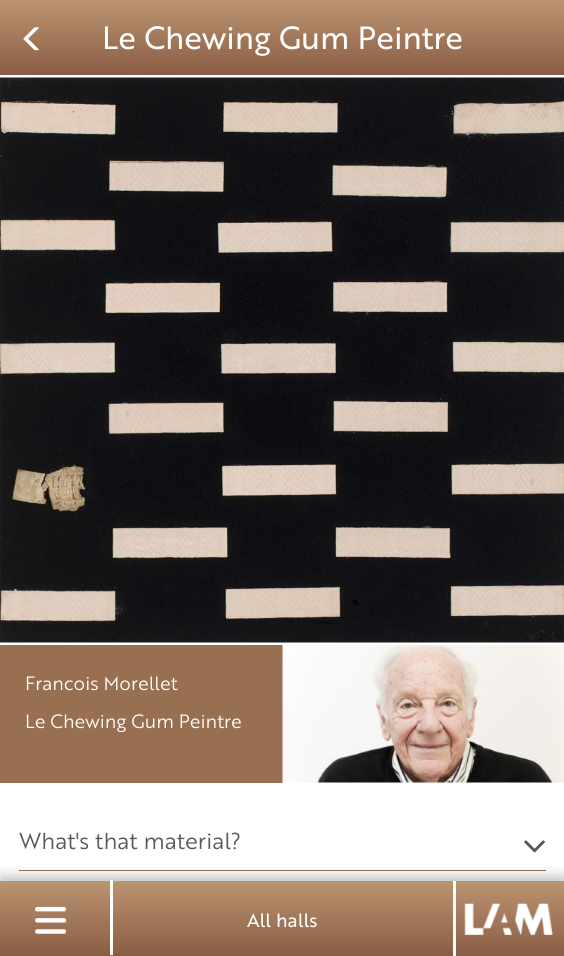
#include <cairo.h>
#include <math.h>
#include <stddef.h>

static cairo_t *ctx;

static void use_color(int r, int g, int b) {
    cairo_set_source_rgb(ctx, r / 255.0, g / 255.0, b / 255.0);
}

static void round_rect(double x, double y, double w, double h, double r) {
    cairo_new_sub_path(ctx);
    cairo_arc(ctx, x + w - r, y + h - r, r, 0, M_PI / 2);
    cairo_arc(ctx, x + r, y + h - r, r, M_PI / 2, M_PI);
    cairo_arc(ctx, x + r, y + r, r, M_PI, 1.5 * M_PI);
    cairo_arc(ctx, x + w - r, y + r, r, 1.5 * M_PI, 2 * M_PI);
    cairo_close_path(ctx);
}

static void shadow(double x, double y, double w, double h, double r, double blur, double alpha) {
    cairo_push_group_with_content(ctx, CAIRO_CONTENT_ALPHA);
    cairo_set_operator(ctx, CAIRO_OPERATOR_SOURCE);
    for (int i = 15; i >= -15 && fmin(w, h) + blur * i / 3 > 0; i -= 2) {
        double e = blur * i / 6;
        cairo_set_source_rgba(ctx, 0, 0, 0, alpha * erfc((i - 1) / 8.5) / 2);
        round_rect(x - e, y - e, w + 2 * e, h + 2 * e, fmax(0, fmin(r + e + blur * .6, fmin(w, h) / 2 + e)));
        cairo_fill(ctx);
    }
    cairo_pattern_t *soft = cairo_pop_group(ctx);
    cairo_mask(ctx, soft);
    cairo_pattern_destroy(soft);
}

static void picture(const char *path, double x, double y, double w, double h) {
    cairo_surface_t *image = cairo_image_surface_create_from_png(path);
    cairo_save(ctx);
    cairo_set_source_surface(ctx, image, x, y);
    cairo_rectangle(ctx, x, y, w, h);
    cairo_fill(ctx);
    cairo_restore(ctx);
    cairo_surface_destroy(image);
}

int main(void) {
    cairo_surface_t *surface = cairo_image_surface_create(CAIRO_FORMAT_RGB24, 564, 956);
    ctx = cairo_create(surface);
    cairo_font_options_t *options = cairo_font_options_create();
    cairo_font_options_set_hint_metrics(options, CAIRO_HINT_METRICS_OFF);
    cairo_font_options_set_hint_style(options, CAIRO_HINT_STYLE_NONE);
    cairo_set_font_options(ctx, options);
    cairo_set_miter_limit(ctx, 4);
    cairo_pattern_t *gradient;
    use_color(255, 255, 255);
    cairo_paint(ctx);
    gradient = cairo_pattern_create_linear(283, 0, 283, 75);
    cairo_pattern_add_color_stop_rgba(gradient, 0, 0.737, 0.58, 0.443, 1);
    cairo_pattern_add_color_stop_rgba(gradient, 1, 0.537, 0.365, 0.267, 1);
    cairo_set_source(ctx, gradient);
    cairo_pattern_destroy(gradient);
    cairo_rectangle(ctx, 0, 0, 564, 75);
    cairo_fill(ctx);
    picture("img1.png", 23, 27, 16, 24);
    cairo_select_font_face(ctx, "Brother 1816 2", CAIRO_FONT_SLANT_NORMAL, CAIRO_FONT_WEIGHT_NORMAL);
    cairo_set_font_size(ctx, 31.25);
    use_color(255, 255, 255);
    cairo_move_to(ctx, 102, 49);
    cairo_show_text(ctx, "Le Chewing Gum Peintre");
    picture("img2.png", 0, 77, 564, 566);
    use_color(153, 111, 82);
    cairo_rectangle(ctx, 0, 645, 283, 138);
    cairo_fill(ctx);
    cairo_select_font_face(ctx, "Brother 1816", CAIRO_FONT_SLANT_NORMAL, CAIRO_FONT_WEIGHT_NORMAL);
    cairo_set_font_size(ctx, 18.75);
    use_color(255, 255, 255);
    cairo_move_to(ctx, 25, 690);
    cairo_show_text(ctx, "Francois Morellet");
    cairo_move_to(ctx, 25, 728);
    cairo_show_text(ctx, "Le Chewing Gum Peintre");
    picture("img3.png", 282, 645, 282, 138);
    use_color(153, 111, 82);
    cairo_rectangle(ctx, 19, 870, 527, 1);
    cairo_fill(ctx);
    cairo_set_font_size(ctx, 22.5);
    use_color(88, 88, 88);
    cairo_move_to(ctx, 19, 849);
    cairo_show_text(ctx, "What's that material?");
    picture("img4.png", 524, 840, 21, 13);
    use_color(38, 53, 61);
    shadow(0, 876, 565, 75, 0, 6, 0.3);
    gradient = cairo_pattern_create_linear(283, 881, 283, 956);
    cairo_pattern_add_color_stop_rgba(gradient, 0, 0.737, 0.58, 0.443, 1);
    cairo_pattern_add_color_stop_rgba(gradient, 1, 0.537, 0.365, 0.267, 1);
    cairo_set_source(ctx, gradient);
    cairo_pattern_destroy(gradient);
    cairo_rectangle(ctx, 0, 881, 564, 75);
    cairo_fill(ctx);
    picture("img5.png", 35, 906, 31, 28);
    use_color(255, 255, 255);
    cairo_rectangle(ctx, 110, 880, 3, 75);
    cairo_fill(ctx);
    cairo_select_font_face(ctx, "Brother 1816 2", CAIRO_FONT_SLANT_NORMAL, CAIRO_FONT_WEIGHT_NORMAL);
    cairo_set_font_size(ctx, 18.75);
    cairo_move_to(ctx, 247, 927);
    cairo_show_text(ctx, "All halls");
    cairo_rectangle(ctx, 453, 881, 3, 75);
    cairo_fill(ctx);
    picture("img6.png", 464, 903, 89, 32);
    cairo_surface_write_to_png(surface, "result.png");
    cairo_font_options_destroy(options);
    cairo_destroy(ctx);
    cairo_surface_destroy(surface);
    return 0;
}
